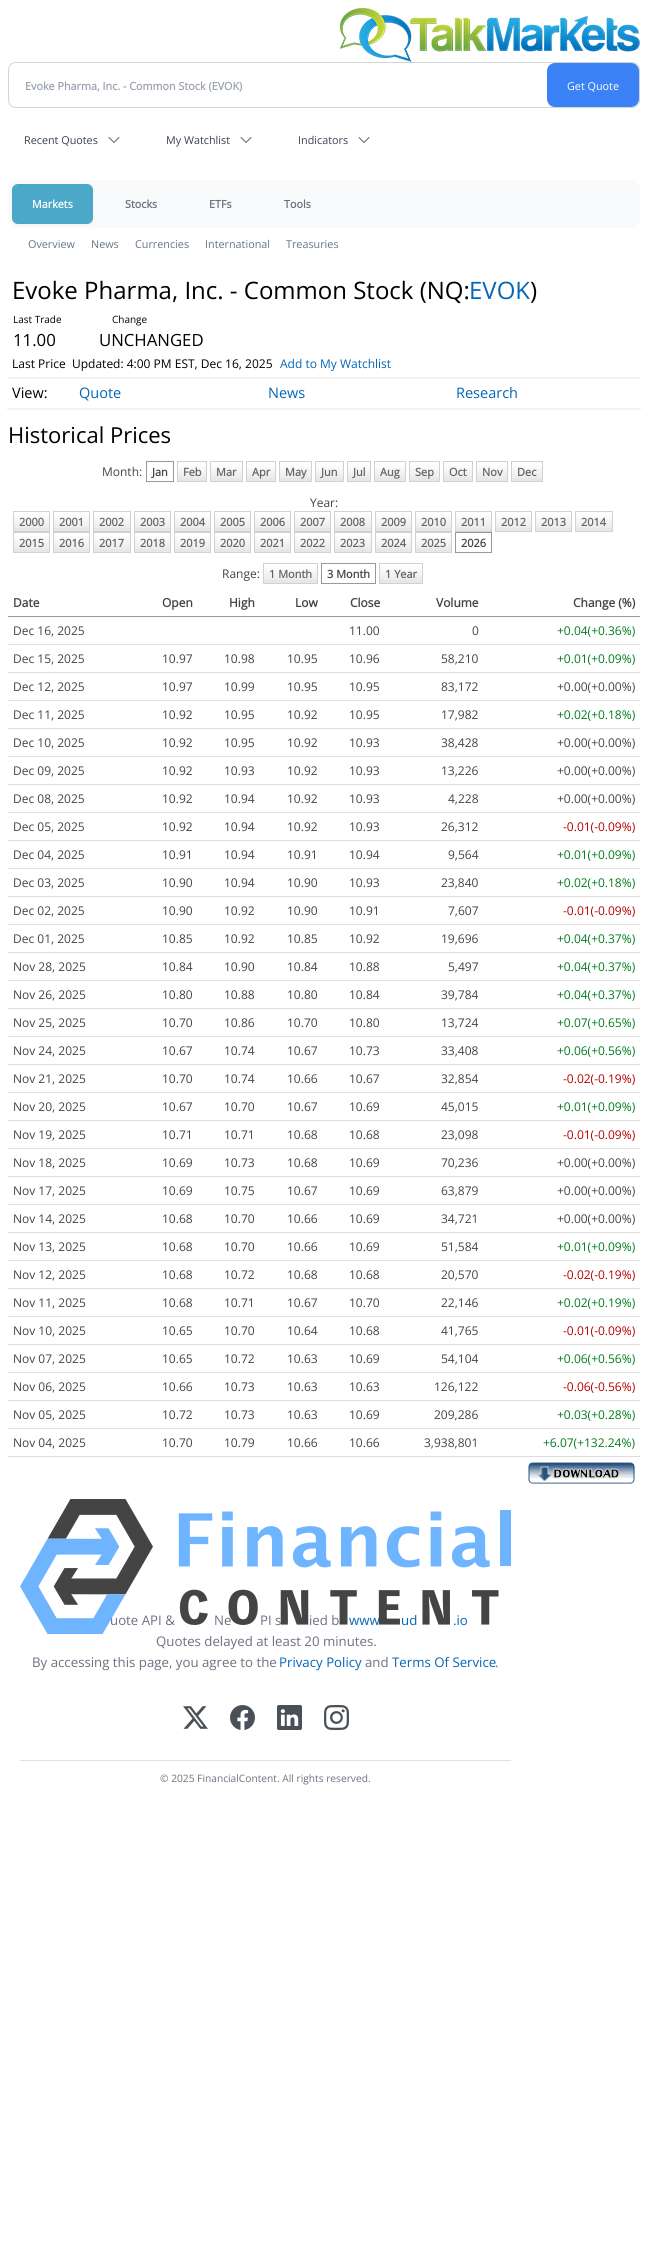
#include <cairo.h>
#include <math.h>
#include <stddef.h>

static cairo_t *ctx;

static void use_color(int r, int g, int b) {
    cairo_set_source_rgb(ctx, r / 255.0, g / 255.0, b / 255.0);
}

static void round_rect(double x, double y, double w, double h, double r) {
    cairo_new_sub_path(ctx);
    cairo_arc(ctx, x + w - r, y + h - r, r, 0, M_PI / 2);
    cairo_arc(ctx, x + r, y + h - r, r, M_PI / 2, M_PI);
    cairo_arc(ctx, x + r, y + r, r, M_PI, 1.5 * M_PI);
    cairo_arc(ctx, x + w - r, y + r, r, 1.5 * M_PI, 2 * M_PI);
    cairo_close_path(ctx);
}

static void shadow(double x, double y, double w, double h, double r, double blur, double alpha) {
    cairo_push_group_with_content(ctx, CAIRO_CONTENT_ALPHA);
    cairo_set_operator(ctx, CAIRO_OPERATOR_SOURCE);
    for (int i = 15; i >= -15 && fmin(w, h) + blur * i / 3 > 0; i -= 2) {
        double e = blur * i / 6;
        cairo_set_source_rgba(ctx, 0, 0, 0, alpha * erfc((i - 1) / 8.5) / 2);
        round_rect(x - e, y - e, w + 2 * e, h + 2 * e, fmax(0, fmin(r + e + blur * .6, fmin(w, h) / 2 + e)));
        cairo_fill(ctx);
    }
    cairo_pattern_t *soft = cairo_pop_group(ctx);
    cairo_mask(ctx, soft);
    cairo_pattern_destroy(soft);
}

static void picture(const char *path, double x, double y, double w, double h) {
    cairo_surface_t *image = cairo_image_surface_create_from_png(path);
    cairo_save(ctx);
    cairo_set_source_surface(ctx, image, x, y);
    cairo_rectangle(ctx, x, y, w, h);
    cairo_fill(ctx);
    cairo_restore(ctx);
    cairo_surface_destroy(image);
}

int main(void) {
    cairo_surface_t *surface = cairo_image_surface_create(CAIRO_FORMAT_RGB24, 648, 2253);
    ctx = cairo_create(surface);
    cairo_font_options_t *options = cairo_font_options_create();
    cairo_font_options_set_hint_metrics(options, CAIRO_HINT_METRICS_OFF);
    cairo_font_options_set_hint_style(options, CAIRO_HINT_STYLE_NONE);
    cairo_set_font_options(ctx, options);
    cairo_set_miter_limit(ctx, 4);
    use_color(255, 255, 255);
    cairo_paint(ctx);
    picture("img1.png", 340, 8, 300, 54);
    round_rect(8.5, 62.5, 631, 45, 7.5);
    use_color(209, 213, 219);
    cairo_set_line_width(ctx, 1);
    cairo_stroke(ctx);
    cairo_select_font_face(ctx, "Open Sans", CAIRO_FONT_SLANT_NORMAL, CAIRO_FONT_WEIGHT_BOLD);
    cairo_set_font_size(ctx, 10.8);
    use_color(156, 163, 175);
    cairo_move_to(ctx, 25, 90);
    cairo_show_text(ctx, "Evoke Pharma, Inc. - Common Stock (EVOK)");
    use_color(59, 130, 246);
    round_rect(547, 63, 92, 44, 8);
    cairo_fill(ctx);
    cairo_select_font_face(ctx, "Open Sans", CAIRO_FONT_SLANT_NORMAL, CAIRO_FONT_WEIGHT_NORMAL);
    use_color(255, 255, 255);
    cairo_move_to(ctx, 567, 90);
    cairo_show_text(ctx, "Get Quote");
    use_color(55, 65, 81);
    cairo_move_to(ctx, 24, 144);
    cairo_show_text(ctx, "Recent Quotes");
    cairo_new_path(ctx);
    cairo_move_to(ctx, 119, 137.5);
    cairo_line_to(ctx, 114, 142.5);
    cairo_line_to(ctx, 109, 137.5);
    use_color(102, 102, 102);
    cairo_set_line_cap(ctx, CAIRO_LINE_CAP_ROUND);
    cairo_set_line_join(ctx, CAIRO_LINE_JOIN_ROUND);
    cairo_stroke(ctx);
    use_color(55, 65, 81);
    cairo_move_to(ctx, 166, 144);
    cairo_show_text(ctx, "My Watchlist");
    cairo_new_path(ctx);
    cairo_move_to(ctx, 251, 137.5);
    cairo_line_to(ctx, 246, 142.5);
    cairo_line_to(ctx, 241, 137.5);
    use_color(102, 102, 102);
    cairo_stroke(ctx);
    use_color(55, 65, 81);
    cairo_move_to(ctx, 298, 144);
    cairo_show_text(ctx, "Indicators");
    cairo_new_path(ctx);
    cairo_move_to(ctx, 369, 137.5);
    cairo_line_to(ctx, 364, 142.5);
    cairo_line_to(ctx, 359, 137.5);
    use_color(102, 102, 102);
    cairo_stroke(ctx);
    use_color(248, 250, 252);
    round_rect(8, 180, 632, 48, 8);
    cairo_fill(ctx);
    use_color(0, 0, 0);
    shadow(12, 185, 81, 40, 6, 1, 0.05);
    use_color(76, 168, 200);
    round_rect(12, 184, 81, 40, 6);
    cairo_fill(ctx);
    cairo_select_font_face(ctx, "Open Sans", CAIRO_FONT_SLANT_NORMAL, CAIRO_FONT_WEIGHT_BOLD);
    use_color(255, 255, 255);
    cairo_move_to(ctx, 32, 208);
    cairo_show_text(ctx, "Markets");
    use_color(107, 114, 128);
    cairo_move_to(ctx, 125, 208);
    cairo_show_text(ctx, "Stocks");
    cairo_move_to(ctx, 209, 208);
    cairo_show_text(ctx, "ETFs");
    cairo_move_to(ctx, 284, 208);
    cairo_show_text(ctx, "Tools");
    cairo_select_font_face(ctx, "Open Sans", CAIRO_FONT_SLANT_NORMAL, CAIRO_FONT_WEIGHT_NORMAL);
    use_color(100, 116, 139);
    cairo_move_to(ctx, 28, 248);
    cairo_show_text(ctx, "Overview");
    cairo_move_to(ctx, 91, 248);
    cairo_show_text(ctx, "News");
    cairo_move_to(ctx, 135, 248);
    cairo_show_text(ctx, "Currencies");
    cairo_move_to(ctx, 205, 248);
    cairo_show_text(ctx, "International");
    cairo_move_to(ctx, 286, 248);
    cairo_show_text(ctx, "Treasuries");
    cairo_set_font_size(ctx, 24);
    use_color(0, 0, 0);
    cairo_move_to(ctx, 12, 299);
    cairo_show_text(ctx, "Evoke Pharma, Inc. - Common Stock (NQ:");
    use_color(4, 102, 182);
    cairo_move_to(ctx, 469, 299);
    cairo_show_text(ctx, "EVOK");
    use_color(0, 0, 0);
    cairo_move_to(ctx, 530, 299);
    cairo_show_text(ctx, ")");
    cairo_set_font_size(ctx, 10);
    cairo_move_to(ctx, 13, 323);
    cairo_show_text(ctx, "Last Trade");
    cairo_set_font_size(ctx, 16.75);
    cairo_move_to(ctx, 13, 346);
    cairo_show_text(ctx, "11.00");
    cairo_set_font_size(ctx, 10);
    cairo_move_to(ctx, 112, 323);
    cairo_show_text(ctx, "Change");
    cairo_set_font_size(ctx, 16.75);
    cairo_move_to(ctx, 99, 346);
    cairo_show_text(ctx, "UNCHANGED");
    cairo_set_font_size(ctx, 12);
    cairo_move_to(ctx, 12, 368);
    cairo_show_text(ctx, "Last Price");
    cairo_move_to(ctx, 72, 368);
    cairo_show_text(ctx, "Updated: 4:00 PM EST, Dec 16, 2025");
    use_color(4, 102, 182);
    cairo_move_to(ctx, 280, 368);
    cairo_show_text(ctx, "Add to My Watchlist");
    use_color(243, 243, 243);
    cairo_rectangle(ctx, 7, 377, 634, 2);
    cairo_fill(ctx);
    cairo_rectangle(ctx, 7, 408, 634, 2);
    cairo_fill(ctx);
    cairo_set_font_size(ctx, 14.5);
    use_color(0, 0, 0);
    cairo_move_to(ctx, 12, 398);
    cairo_show_text(ctx, "View:");
    use_color(4, 102, 182);
    cairo_move_to(ctx, 79, 398);
    cairo_show_text(ctx, "Quote");
    cairo_move_to(ctx, 268, 398);
    cairo_show_text(ctx, "News");
    cairo_move_to(ctx, 456, 398);
    cairo_show_text(ctx, "Research");
    cairo_set_font_size(ctx, 22);
    use_color(0, 0, 0);
    cairo_move_to(ctx, 8, 443);
    cairo_show_text(ctx, "Historical Prices");
    cairo_set_font_size(ctx, 12);
    use_color(68, 68, 68);
    cairo_move_to(ctx, 102, 476);
    cairo_show_text(ctx, "Month:");
    cairo_rectangle(ctx, 146.5, 461.5, 27, 20);
    use_color(153, 153, 153);
    cairo_set_line_cap(ctx, CAIRO_LINE_CAP_BUTT);
    cairo_set_line_join(ctx, CAIRO_LINE_JOIN_MITER);
    cairo_stroke(ctx);
    cairo_select_font_face(ctx, "Open Sans", CAIRO_FONT_SLANT_NORMAL, CAIRO_FONT_WEIGHT_BOLD);
    cairo_set_font_size(ctx, 11);
    use_color(68, 68, 68);
    cairo_move_to(ctx, 152, 476);
    cairo_show_text(ctx, "Jan");
    use_color(231, 231, 231);
    cairo_rectangle(ctx, 178, 478, 28, 3);
    cairo_fill(ctx);
    picture("img2.png", 178, 462, 28, 16);
    cairo_rectangle(ctx, 177.5, 461.5, 29, 20);
    use_color(209, 209, 209);
    cairo_stroke(ctx);
    use_color(102, 102, 102);
    cairo_move_to(ctx, 183, 476);
    cairo_show_text(ctx, "Feb");
    use_color(231, 231, 231);
    cairo_rectangle(ctx, 211, 478, 31, 3);
    cairo_fill(ctx);
    picture("img3.png", 211, 462, 31, 16);
    cairo_rectangle(ctx, 210.5, 461.5, 32, 20);
    use_color(209, 209, 209);
    cairo_stroke(ctx);
    use_color(102, 102, 102);
    cairo_move_to(ctx, 216, 476);
    cairo_show_text(ctx, "Mar");
    use_color(231, 231, 231);
    cairo_rectangle(ctx, 247, 478, 28, 3);
    cairo_fill(ctx);
    picture("img2.png", 247, 462, 28, 16);
    cairo_rectangle(ctx, 246.5, 461.5, 29, 20);
    use_color(209, 209, 209);
    cairo_stroke(ctx);
    use_color(102, 102, 102);
    cairo_move_to(ctx, 252, 476);
    cairo_show_text(ctx, "Apr");
    use_color(231, 231, 231);
    cairo_rectangle(ctx, 280, 478, 31, 3);
    cairo_fill(ctx);
    picture("img3.png", 280, 462, 31, 16);
    cairo_rectangle(ctx, 279.5, 461.5, 32, 20);
    use_color(209, 209, 209);
    cairo_stroke(ctx);
    use_color(102, 102, 102);
    cairo_move_to(ctx, 285, 476);
    cairo_show_text(ctx, "May");
    use_color(231, 231, 231);
    cairo_rectangle(ctx, 316, 478, 27, 3);
    cairo_fill(ctx);
    picture("img4.png", 316, 462, 27, 16);
    cairo_rectangle(ctx, 315.5, 461.5, 28, 20);
    use_color(209, 209, 209);
    cairo_stroke(ctx);
    use_color(102, 102, 102);
    cairo_move_to(ctx, 321, 476);
    cairo_show_text(ctx, "Jun");
    use_color(231, 231, 231);
    cairo_rectangle(ctx, 348, 478, 22, 3);
    cairo_fill(ctx);
    picture("img5.png", 348, 462, 22, 16);
    cairo_rectangle(ctx, 347.5, 461.5, 23, 20);
    use_color(209, 209, 209);
    cairo_stroke(ctx);
    use_color(102, 102, 102);
    cairo_move_to(ctx, 353, 476);
    cairo_show_text(ctx, "Jul");
    use_color(231, 231, 231);
    cairo_rectangle(ctx, 375, 478, 30, 3);
    cairo_fill(ctx);
    picture("img6.png", 375, 462, 30, 16);
    cairo_rectangle(ctx, 374.5, 461.5, 31, 20);
    use_color(209, 209, 209);
    cairo_stroke(ctx);
    use_color(102, 102, 102);
    cairo_move_to(ctx, 380, 476);
    cairo_show_text(ctx, "Aug");
    use_color(231, 231, 231);
    cairo_rectangle(ctx, 410, 478, 29, 3);
    cairo_fill(ctx);
    picture("img7.png", 410, 462, 29, 16);
    cairo_rectangle(ctx, 409.5, 461.5, 30, 20);
    use_color(209, 209, 209);
    cairo_stroke(ctx);
    use_color(102, 102, 102);
    cairo_move_to(ctx, 415, 476);
    cairo_show_text(ctx, "Sep");
    use_color(231, 231, 231);
    cairo_rectangle(ctx, 444, 478, 28, 3);
    cairo_fill(ctx);
    picture("img2.png", 444, 462, 28, 16);
    cairo_rectangle(ctx, 443.5, 461.5, 29, 20);
    use_color(209, 209, 209);
    cairo_stroke(ctx);
    use_color(102, 102, 102);
    cairo_move_to(ctx, 449, 476);
    cairo_show_text(ctx, "Oct");
    use_color(231, 231, 231);
    cairo_rectangle(ctx, 477, 478, 30, 3);
    cairo_fill(ctx);
    picture("img6.png", 477, 462, 30, 16);
    cairo_rectangle(ctx, 476.5, 461.5, 31, 20);
    use_color(209, 209, 209);
    cairo_stroke(ctx);
    use_color(102, 102, 102);
    cairo_move_to(ctx, 482, 476);
    cairo_show_text(ctx, "Nov");
    use_color(231, 231, 231);
    cairo_rectangle(ctx, 512, 478, 30, 3);
    cairo_fill(ctx);
    picture("img6.png", 512, 462, 30, 16);
    cairo_rectangle(ctx, 511.5, 461.5, 31, 20);
    use_color(209, 209, 209);
    cairo_stroke(ctx);
    use_color(102, 102, 102);
    cairo_move_to(ctx, 517, 476);
    cairo_show_text(ctx, "Dec");
    cairo_select_font_face(ctx, "Open Sans", CAIRO_FONT_SLANT_NORMAL, CAIRO_FONT_WEIGHT_NORMAL);
    cairo_set_font_size(ctx, 12);
    use_color(68, 68, 68);
    cairo_move_to(ctx, 310, 507);
    cairo_show_text(ctx, "Year:");
    use_color(231, 231, 231);
    cairo_rectangle(ctx, 14, 528, 35, 3);
    cairo_fill(ctx);
    picture("img8.png", 14, 512, 35, 16);
    cairo_rectangle(ctx, 13.5, 511.5, 36, 20);
    use_color(209, 209, 209);
    cairo_stroke(ctx);
    cairo_select_font_face(ctx, "Open Sans", CAIRO_FONT_SLANT_NORMAL, CAIRO_FONT_WEIGHT_BOLD);
    cairo_set_font_size(ctx, 11);
    use_color(102, 102, 102);
    cairo_move_to(ctx, 19, 526);
    cairo_show_text(ctx, "2000");
    use_color(231, 231, 231);
    cairo_rectangle(ctx, 54, 528, 35, 3);
    cairo_fill(ctx);
    picture("img8.png", 54, 512, 35, 16);
    cairo_rectangle(ctx, 53.5, 511.5, 36, 20);
    use_color(209, 209, 209);
    cairo_stroke(ctx);
    use_color(102, 102, 102);
    cairo_move_to(ctx, 59, 526);
    cairo_show_text(ctx, "2001");
    use_color(231, 231, 231);
    cairo_rectangle(ctx, 94, 528, 36, 3);
    cairo_fill(ctx);
    picture("img9.png", 94, 512, 36, 16);
    cairo_rectangle(ctx, 93.5, 511.5, 37, 20);
    use_color(209, 209, 209);
    cairo_stroke(ctx);
    use_color(102, 102, 102);
    cairo_move_to(ctx, 99, 526);
    cairo_show_text(ctx, "2002");
    use_color(231, 231, 231);
    cairo_rectangle(ctx, 135, 528, 35, 3);
    cairo_fill(ctx);
    picture("img8.png", 135, 512, 35, 16);
    cairo_rectangle(ctx, 134.5, 511.5, 36, 20);
    use_color(209, 209, 209);
    cairo_stroke(ctx);
    use_color(102, 102, 102);
    cairo_move_to(ctx, 140, 526);
    cairo_show_text(ctx, "2003");
    use_color(231, 231, 231);
    cairo_rectangle(ctx, 175, 528, 35, 3);
    cairo_fill(ctx);
    picture("img8.png", 175, 512, 35, 16);
    cairo_rectangle(ctx, 174.5, 511.5, 36, 20);
    use_color(209, 209, 209);
    cairo_stroke(ctx);
    use_color(102, 102, 102);
    cairo_move_to(ctx, 180, 526);
    cairo_show_text(ctx, "2004");
    use_color(231, 231, 231);
    cairo_rectangle(ctx, 215, 528, 35, 3);
    cairo_fill(ctx);
    picture("img8.png", 215, 512, 35, 16);
    cairo_rectangle(ctx, 214.5, 511.5, 36, 20);
    use_color(209, 209, 209);
    cairo_stroke(ctx);
    use_color(102, 102, 102);
    cairo_move_to(ctx, 220, 526);
    cairo_show_text(ctx, "2005");
    use_color(231, 231, 231);
    cairo_rectangle(ctx, 255, 528, 35, 3);
    cairo_fill(ctx);
    picture("img8.png", 255, 512, 35, 16);
    cairo_rectangle(ctx, 254.5, 511.5, 36, 20);
    use_color(209, 209, 209);
    cairo_stroke(ctx);
    use_color(102, 102, 102);
    cairo_move_to(ctx, 260, 526);
    cairo_show_text(ctx, "2006");
    use_color(231, 231, 231);
    cairo_rectangle(ctx, 295, 528, 35, 3);
    cairo_fill(ctx);
    picture("img8.png", 295, 512, 35, 16);
    cairo_rectangle(ctx, 294.5, 511.5, 36, 20);
    use_color(209, 209, 209);
    cairo_stroke(ctx);
    use_color(102, 102, 102);
    cairo_move_to(ctx, 300, 526);
    cairo_show_text(ctx, "2007");
    use_color(231, 231, 231);
    cairo_rectangle(ctx, 335, 528, 36, 3);
    cairo_fill(ctx);
    picture("img9.png", 335, 512, 36, 16);
    cairo_rectangle(ctx, 334.5, 511.5, 37, 20);
    use_color(209, 209, 209);
    cairo_stroke(ctx);
    use_color(102, 102, 102);
    cairo_move_to(ctx, 340, 526);
    cairo_show_text(ctx, "2008");
    use_color(231, 231, 231);
    cairo_rectangle(ctx, 376, 528, 35, 3);
    cairo_fill(ctx);
    picture("img8.png", 376, 512, 35, 16);
    cairo_rectangle(ctx, 375.5, 511.5, 36, 20);
    use_color(209, 209, 209);
    cairo_stroke(ctx);
    use_color(102, 102, 102);
    cairo_move_to(ctx, 381, 526);
    cairo_show_text(ctx, "2009");
    use_color(231, 231, 231);
    cairo_rectangle(ctx, 416, 528, 35, 3);
    cairo_fill(ctx);
    picture("img8.png", 416, 512, 35, 16);
    cairo_rectangle(ctx, 415.5, 511.5, 36, 20);
    use_color(209, 209, 209);
    cairo_stroke(ctx);
    use_color(102, 102, 102);
    cairo_move_to(ctx, 421, 526);
    cairo_show_text(ctx, "2010");
    use_color(231, 231, 231);
    cairo_rectangle(ctx, 456, 528, 35, 3);
    cairo_fill(ctx);
    picture("img8.png", 456, 512, 35, 16);
    cairo_rectangle(ctx, 455.5, 511.5, 36, 20);
    use_color(209, 209, 209);
    cairo_stroke(ctx);
    use_color(102, 102, 102);
    cairo_move_to(ctx, 461, 526);
    cairo_show_text(ctx, "2011");
    use_color(231, 231, 231);
    cairo_rectangle(ctx, 496, 528, 35, 3);
    cairo_fill(ctx);
    picture("img8.png", 496, 512, 35, 16);
    cairo_rectangle(ctx, 495.5, 511.5, 36, 20);
    use_color(209, 209, 209);
    cairo_stroke(ctx);
    use_color(102, 102, 102);
    cairo_move_to(ctx, 501, 526);
    cairo_show_text(ctx, "2012");
    use_color(231, 231, 231);
    cairo_rectangle(ctx, 536, 528, 35, 3);
    cairo_fill(ctx);
    picture("img8.png", 536, 512, 35, 16);
    cairo_rectangle(ctx, 535.5, 511.5, 36, 20);
    use_color(209, 209, 209);
    cairo_stroke(ctx);
    use_color(102, 102, 102);
    cairo_move_to(ctx, 541, 526);
    cairo_show_text(ctx, "2013");
    use_color(231, 231, 231);
    cairo_rectangle(ctx, 576, 528, 36, 3);
    cairo_fill(ctx);
    picture("img9.png", 576, 512, 36, 16);
    cairo_rectangle(ctx, 575.5, 511.5, 37, 20);
    use_color(209, 209, 209);
    cairo_stroke(ctx);
    use_color(102, 102, 102);
    cairo_move_to(ctx, 581, 526);
    cairo_show_text(ctx, "2014");
    use_color(231, 231, 231);
    cairo_rectangle(ctx, 14, 549, 35, 3);
    cairo_fill(ctx);
    picture("img8.png", 14, 533, 35, 16);
    cairo_rectangle(ctx, 13.5, 532.5, 36, 20);
    use_color(209, 209, 209);
    cairo_stroke(ctx);
    use_color(102, 102, 102);
    cairo_move_to(ctx, 19, 547);
    cairo_show_text(ctx, "2015");
    use_color(231, 231, 231);
    cairo_rectangle(ctx, 54, 549, 35, 3);
    cairo_fill(ctx);
    picture("img8.png", 54, 533, 35, 16);
    cairo_rectangle(ctx, 53.5, 532.5, 36, 20);
    use_color(209, 209, 209);
    cairo_stroke(ctx);
    use_color(102, 102, 102);
    cairo_move_to(ctx, 59, 547);
    cairo_show_text(ctx, "2016");
    use_color(231, 231, 231);
    cairo_rectangle(ctx, 94, 549, 36, 3);
    cairo_fill(ctx);
    picture("img9.png", 94, 533, 36, 16);
    cairo_rectangle(ctx, 93.5, 532.5, 37, 20);
    use_color(209, 209, 209);
    cairo_stroke(ctx);
    use_color(102, 102, 102);
    cairo_move_to(ctx, 99, 547);
    cairo_show_text(ctx, "2017");
    use_color(231, 231, 231);
    cairo_rectangle(ctx, 135, 549, 35, 3);
    cairo_fill(ctx);
    picture("img8.png", 135, 533, 35, 16);
    cairo_rectangle(ctx, 134.5, 532.5, 36, 20);
    use_color(209, 209, 209);
    cairo_stroke(ctx);
    use_color(102, 102, 102);
    cairo_move_to(ctx, 140, 547);
    cairo_show_text(ctx, "2018");
    use_color(231, 231, 231);
    cairo_rectangle(ctx, 175, 549, 35, 3);
    cairo_fill(ctx);
    picture("img8.png", 175, 533, 35, 16);
    cairo_rectangle(ctx, 174.5, 532.5, 36, 20);
    use_color(209, 209, 209);
    cairo_stroke(ctx);
    use_color(102, 102, 102);
    cairo_move_to(ctx, 180, 547);
    cairo_show_text(ctx, "2019");
    use_color(231, 231, 231);
    cairo_rectangle(ctx, 215, 549, 35, 3);
    cairo_fill(ctx);
    picture("img8.png", 215, 533, 35, 16);
    cairo_rectangle(ctx, 214.5, 532.5, 36, 20);
    use_color(209, 209, 209);
    cairo_stroke(ctx);
    use_color(102, 102, 102);
    cairo_move_to(ctx, 220, 547);
    cairo_show_text(ctx, "2020");
    use_color(231, 231, 231);
    cairo_rectangle(ctx, 255, 549, 35, 3);
    cairo_fill(ctx);
    picture("img8.png", 255, 533, 35, 16);
    cairo_rectangle(ctx, 254.5, 532.5, 36, 20);
    use_color(209, 209, 209);
    cairo_stroke(ctx);
    use_color(102, 102, 102);
    cairo_move_to(ctx, 260, 547);
    cairo_show_text(ctx, "2021");
    use_color(231, 231, 231);
    cairo_rectangle(ctx, 295, 549, 35, 3);
    cairo_fill(ctx);
    picture("img8.png", 295, 533, 35, 16);
    cairo_rectangle(ctx, 294.5, 532.5, 36, 20);
    use_color(209, 209, 209);
    cairo_stroke(ctx);
    use_color(102, 102, 102);
    cairo_move_to(ctx, 300, 547);
    cairo_show_text(ctx, "2022");
    use_color(231, 231, 231);
    cairo_rectangle(ctx, 335, 549, 36, 3);
    cairo_fill(ctx);
    picture("img9.png", 335, 533, 36, 16);
    cairo_rectangle(ctx, 334.5, 532.5, 37, 20);
    use_color(209, 209, 209);
    cairo_stroke(ctx);
    use_color(102, 102, 102);
    cairo_move_to(ctx, 340, 547);
    cairo_show_text(ctx, "2023");
    use_color(231, 231, 231);
    cairo_rectangle(ctx, 376, 549, 35, 3);
    cairo_fill(ctx);
    picture("img8.png", 376, 533, 35, 16);
    cairo_rectangle(ctx, 375.5, 532.5, 36, 20);
    use_color(209, 209, 209);
    cairo_stroke(ctx);
    use_color(102, 102, 102);
    cairo_move_to(ctx, 381, 547);
    cairo_show_text(ctx, "2024");
    use_color(231, 231, 231);
    cairo_rectangle(ctx, 416, 549, 35, 3);
    cairo_fill(ctx);
    picture("img8.png", 416, 533, 35, 16);
    cairo_rectangle(ctx, 415.5, 532.5, 36, 20);
    use_color(209, 209, 209);
    cairo_stroke(ctx);
    use_color(102, 102, 102);
    cairo_move_to(ctx, 421, 547);
    cairo_show_text(ctx, "2025");
    cairo_rectangle(ctx, 455.5, 532.5, 36, 20);
    use_color(153, 153, 153);
    cairo_stroke(ctx);
    use_color(68, 68, 68);
    cairo_move_to(ctx, 461, 547);
    cairo_show_text(ctx, "2026");
    cairo_select_font_face(ctx, "Open Sans", CAIRO_FONT_SLANT_NORMAL, CAIRO_FONT_WEIGHT_NORMAL);
    cairo_set_font_size(ctx, 12);
    cairo_move_to(ctx, 222, 578);
    cairo_show_text(ctx, "Range:");
    use_color(231, 231, 231);
    cairo_rectangle(ctx, 264, 580, 53, 3);
    cairo_fill(ctx);
    picture("img10.png", 264, 564, 53, 16);
    cairo_rectangle(ctx, 263.5, 563.5, 54, 20);
    use_color(209, 209, 209);
    cairo_stroke(ctx);
    cairo_select_font_face(ctx, "Open Sans", CAIRO_FONT_SLANT_NORMAL, CAIRO_FONT_WEIGHT_BOLD);
    cairo_set_font_size(ctx, 11);
    use_color(102, 102, 102);
    cairo_move_to(ctx, 269, 578);
    cairo_show_text(ctx, "1 Month");
    cairo_rectangle(ctx, 321.5, 563.5, 54, 20);
    use_color(153, 153, 153);
    cairo_stroke(ctx);
    use_color(68, 68, 68);
    cairo_move_to(ctx, 327, 578);
    cairo_show_text(ctx, "3 Month");
    use_color(231, 231, 231);
    cairo_rectangle(ctx, 380, 580, 42, 3);
    cairo_fill(ctx);
    picture("img11.png", 380, 564, 42, 16);
    cairo_rectangle(ctx, 379.5, 563.5, 43, 20);
    use_color(209, 209, 209);
    cairo_stroke(ctx);
    use_color(102, 102, 102);
    cairo_move_to(ctx, 385, 578);
    cairo_show_text(ctx, "1 Year");
    use_color(153, 153, 153);
    cairo_rectangle(ctx, 8, 616, 632, 1);
    cairo_fill(ctx);
    cairo_set_font_size(ctx, 12);
    use_color(68, 68, 68);
    cairo_move_to(ctx, 13, 607);
    cairo_show_text(ctx, "Date");
    cairo_move_to(ctx, 162, 607);
    cairo_show_text(ctx, "Open");
    cairo_move_to(ctx, 229, 607);
    cairo_show_text(ctx, "High");
    cairo_move_to(ctx, 295, 607);
    cairo_show_text(ctx, "Low");
    cairo_move_to(ctx, 350, 607);
    cairo_show_text(ctx, "Close");
    cairo_move_to(ctx, 436, 607);
    cairo_show_text(ctx, "Volume");
    cairo_move_to(ctx, 573, 607);
    cairo_show_text(ctx, "Change (%)");
    use_color(221, 221, 221);
    cairo_rectangle(ctx, 8, 644, 632, 1);
    cairo_fill(ctx);
    cairo_select_font_face(ctx, "Open Sans", CAIRO_FONT_SLANT_NORMAL, CAIRO_FONT_WEIGHT_NORMAL);
    use_color(68, 68, 68);
    cairo_move_to(ctx, 13, 635);
    cairo_show_text(ctx, "Dec 16, 2025");
    cairo_move_to(ctx, 349, 635);
    cairo_show_text(ctx, "11.00");
    cairo_move_to(ctx, 472, 635);
    cairo_show_text(ctx, "0");
    use_color(0, 124, 29);
    cairo_move_to(ctx, 557, 635);
    cairo_show_text(ctx, "+0.04(+0.36%)");
    use_color(221, 221, 221);
    cairo_rectangle(ctx, 8, 672, 632, 1);
    cairo_fill(ctx);
    use_color(68, 68, 68);
    cairo_move_to(ctx, 13, 663);
    cairo_show_text(ctx, "Dec 15, 2025");
    cairo_move_to(ctx, 162, 663);
    cairo_show_text(ctx, "10.97");
    cairo_move_to(ctx, 224, 663);
    cairo_show_text(ctx, "10.98");
    cairo_move_to(ctx, 287, 663);
    cairo_show_text(ctx, "10.95");
    cairo_move_to(ctx, 349, 663);
    cairo_show_text(ctx, "10.96");
    cairo_move_to(ctx, 441, 663);
    cairo_show_text(ctx, "58,210");
    use_color(0, 124, 29);
    cairo_move_to(ctx, 557, 663);
    cairo_show_text(ctx, "+0.01(+0.09%)");
    use_color(221, 221, 221);
    cairo_rectangle(ctx, 8, 700, 632, 1);
    cairo_fill(ctx);
    use_color(68, 68, 68);
    cairo_move_to(ctx, 13, 691);
    cairo_show_text(ctx, "Dec 12, 2025");
    cairo_move_to(ctx, 162, 691);
    cairo_show_text(ctx, "10.97");
    cairo_move_to(ctx, 224, 691);
    cairo_show_text(ctx, "10.99");
    cairo_move_to(ctx, 287, 691);
    cairo_show_text(ctx, "10.95");
    cairo_move_to(ctx, 349, 691);
    cairo_show_text(ctx, "10.95");
    cairo_move_to(ctx, 441, 691);
    cairo_show_text(ctx, "83,172");
    cairo_move_to(ctx, 557, 691);
    cairo_show_text(ctx, "+0.00(+0.00%)");
    use_color(221, 221, 221);
    cairo_rectangle(ctx, 8, 728, 632, 1);
    cairo_fill(ctx);
    use_color(68, 68, 68);
    cairo_move_to(ctx, 13, 719);
    cairo_show_text(ctx, "Dec 11, 2025");
    cairo_move_to(ctx, 162, 719);
    cairo_show_text(ctx, "10.92");
    cairo_move_to(ctx, 224, 719);
    cairo_show_text(ctx, "10.95");
    cairo_move_to(ctx, 287, 719);
    cairo_show_text(ctx, "10.92");
    cairo_move_to(ctx, 349, 719);
    cairo_show_text(ctx, "10.95");
    cairo_move_to(ctx, 441, 719);
    cairo_show_text(ctx, "17,982");
    use_color(0, 124, 29);
    cairo_move_to(ctx, 557, 719);
    cairo_show_text(ctx, "+0.02(+0.18%)");
    use_color(221, 221, 221);
    cairo_rectangle(ctx, 8, 756, 632, 1);
    cairo_fill(ctx);
    use_color(68, 68, 68);
    cairo_move_to(ctx, 13, 747);
    cairo_show_text(ctx, "Dec 10, 2025");
    cairo_move_to(ctx, 162, 747);
    cairo_show_text(ctx, "10.92");
    cairo_move_to(ctx, 224, 747);
    cairo_show_text(ctx, "10.95");
    cairo_move_to(ctx, 287, 747);
    cairo_show_text(ctx, "10.92");
    cairo_move_to(ctx, 349, 747);
    cairo_show_text(ctx, "10.93");
    cairo_move_to(ctx, 441, 747);
    cairo_show_text(ctx, "38,428");
    cairo_move_to(ctx, 557, 747);
    cairo_show_text(ctx, "+0.00(+0.00%)");
    use_color(221, 221, 221);
    cairo_rectangle(ctx, 8, 784, 632, 1);
    cairo_fill(ctx);
    use_color(68, 68, 68);
    cairo_move_to(ctx, 13, 775);
    cairo_show_text(ctx, "Dec 09, 2025");
    cairo_move_to(ctx, 162, 775);
    cairo_show_text(ctx, "10.92");
    cairo_move_to(ctx, 224, 775);
    cairo_show_text(ctx, "10.93");
    cairo_move_to(ctx, 287, 775);
    cairo_show_text(ctx, "10.92");
    cairo_move_to(ctx, 349, 775);
    cairo_show_text(ctx, "10.93");
    cairo_move_to(ctx, 441, 775);
    cairo_show_text(ctx, "13,226");
    cairo_move_to(ctx, 557, 775);
    cairo_show_text(ctx, "+0.00(+0.00%)");
    use_color(221, 221, 221);
    cairo_rectangle(ctx, 8, 812, 632, 1);
    cairo_fill(ctx);
    use_color(68, 68, 68);
    cairo_move_to(ctx, 13, 803);
    cairo_show_text(ctx, "Dec 08, 2025");
    cairo_move_to(ctx, 162, 803);
    cairo_show_text(ctx, "10.92");
    cairo_move_to(ctx, 224, 803);
    cairo_show_text(ctx, "10.94");
    cairo_move_to(ctx, 287, 803);
    cairo_show_text(ctx, "10.92");
    cairo_move_to(ctx, 349, 803);
    cairo_show_text(ctx, "10.93");
    cairo_move_to(ctx, 448, 803);
    cairo_show_text(ctx, "4,228");
    cairo_move_to(ctx, 557, 803);
    cairo_show_text(ctx, "+0.00(+0.00%)");
    use_color(221, 221, 221);
    cairo_rectangle(ctx, 8, 840, 632, 1);
    cairo_fill(ctx);
    use_color(68, 68, 68);
    cairo_move_to(ctx, 13, 831);
    cairo_show_text(ctx, "Dec 05, 2025");
    cairo_move_to(ctx, 162, 831);
    cairo_show_text(ctx, "10.92");
    cairo_move_to(ctx, 224, 831);
    cairo_show_text(ctx, "10.94");
    cairo_move_to(ctx, 287, 831);
    cairo_show_text(ctx, "10.92");
    cairo_move_to(ctx, 349, 831);
    cairo_show_text(ctx, "10.93");
    cairo_move_to(ctx, 441, 831);
    cairo_show_text(ctx, "26,312");
    use_color(181, 0, 0);
    cairo_move_to(ctx, 563, 831);
    cairo_show_text(ctx, "-0.01(-0.09%)");
    use_color(221, 221, 221);
    cairo_rectangle(ctx, 8, 868, 632, 1);
    cairo_fill(ctx);
    use_color(68, 68, 68);
    cairo_move_to(ctx, 13, 859);
    cairo_show_text(ctx, "Dec 04, 2025");
    cairo_move_to(ctx, 162, 859);
    cairo_show_text(ctx, "10.91");
    cairo_move_to(ctx, 224, 859);
    cairo_show_text(ctx, "10.94");
    cairo_move_to(ctx, 287, 859);
    cairo_show_text(ctx, "10.91");
    cairo_move_to(ctx, 349, 859);
    cairo_show_text(ctx, "10.94");
    cairo_move_to(ctx, 448, 859);
    cairo_show_text(ctx, "9,564");
    use_color(0, 124, 29);
    cairo_move_to(ctx, 557, 859);
    cairo_show_text(ctx, "+0.01(+0.09%)");
    use_color(221, 221, 221);
    cairo_rectangle(ctx, 8, 896, 632, 1);
    cairo_fill(ctx);
    use_color(68, 68, 68);
    cairo_move_to(ctx, 13, 887);
    cairo_show_text(ctx, "Dec 03, 2025");
    cairo_move_to(ctx, 162, 887);
    cairo_show_text(ctx, "10.90");
    cairo_move_to(ctx, 224, 887);
    cairo_show_text(ctx, "10.94");
    cairo_move_to(ctx, 287, 887);
    cairo_show_text(ctx, "10.90");
    cairo_move_to(ctx, 349, 887);
    cairo_show_text(ctx, "10.93");
    cairo_move_to(ctx, 441, 887);
    cairo_show_text(ctx, "23,840");
    use_color(0, 124, 29);
    cairo_move_to(ctx, 557, 887);
    cairo_show_text(ctx, "+0.02(+0.18%)");
    use_color(221, 221, 221);
    cairo_rectangle(ctx, 8, 924, 632, 1);
    cairo_fill(ctx);
    use_color(68, 68, 68);
    cairo_move_to(ctx, 13, 915);
    cairo_show_text(ctx, "Dec 02, 2025");
    cairo_move_to(ctx, 162, 915);
    cairo_show_text(ctx, "10.90");
    cairo_move_to(ctx, 224, 915);
    cairo_show_text(ctx, "10.92");
    cairo_move_to(ctx, 287, 915);
    cairo_show_text(ctx, "10.90");
    cairo_move_to(ctx, 349, 915);
    cairo_show_text(ctx, "10.91");
    cairo_move_to(ctx, 448, 915);
    cairo_show_text(ctx, "7,607");
    use_color(181, 0, 0);
    cairo_move_to(ctx, 563, 915);
    cairo_show_text(ctx, "-0.01(-0.09%)");
    use_color(221, 221, 221);
    cairo_rectangle(ctx, 8, 952, 632, 1);
    cairo_fill(ctx);
    use_color(68, 68, 68);
    cairo_move_to(ctx, 13, 943);
    cairo_show_text(ctx, "Dec 01, 2025");
    cairo_move_to(ctx, 162, 943);
    cairo_show_text(ctx, "10.85");
    cairo_move_to(ctx, 224, 943);
    cairo_show_text(ctx, "10.92");
    cairo_move_to(ctx, 287, 943);
    cairo_show_text(ctx, "10.85");
    cairo_move_to(ctx, 349, 943);
    cairo_show_text(ctx, "10.92");
    cairo_move_to(ctx, 441, 943);
    cairo_show_text(ctx, "19,696");
    use_color(0, 124, 29);
    cairo_move_to(ctx, 557, 943);
    cairo_show_text(ctx, "+0.04(+0.37%)");
    use_color(221, 221, 221);
    cairo_rectangle(ctx, 8, 980, 632, 1);
    cairo_fill(ctx);
    use_color(68, 68, 68);
    cairo_move_to(ctx, 13, 971);
    cairo_show_text(ctx, "Nov 28, 2025");
    cairo_move_to(ctx, 162, 971);
    cairo_show_text(ctx, "10.84");
    cairo_move_to(ctx, 224, 971);
    cairo_show_text(ctx, "10.90");
    cairo_move_to(ctx, 287, 971);
    cairo_show_text(ctx, "10.84");
    cairo_move_to(ctx, 349, 971);
    cairo_show_text(ctx, "10.88");
    cairo_move_to(ctx, 448, 971);
    cairo_show_text(ctx, "5,497");
    use_color(0, 124, 29);
    cairo_move_to(ctx, 557, 971);
    cairo_show_text(ctx, "+0.04(+0.37%)");
    use_color(221, 221, 221);
    cairo_rectangle(ctx, 8, 1008, 632, 1);
    cairo_fill(ctx);
    use_color(68, 68, 68);
    cairo_move_to(ctx, 13, 999);
    cairo_show_text(ctx, "Nov 26, 2025");
    cairo_move_to(ctx, 162, 999);
    cairo_show_text(ctx, "10.80");
    cairo_move_to(ctx, 224, 999);
    cairo_show_text(ctx, "10.88");
    cairo_move_to(ctx, 287, 999);
    cairo_show_text(ctx, "10.80");
    cairo_move_to(ctx, 349, 999);
    cairo_show_text(ctx, "10.84");
    cairo_move_to(ctx, 441, 999);
    cairo_show_text(ctx, "39,784");
    use_color(0, 124, 29);
    cairo_move_to(ctx, 557, 999);
    cairo_show_text(ctx, "+0.04(+0.37%)");
    use_color(221, 221, 221);
    cairo_rectangle(ctx, 8, 1036, 632, 1);
    cairo_fill(ctx);
    use_color(68, 68, 68);
    cairo_move_to(ctx, 13, 1027);
    cairo_show_text(ctx, "Nov 25, 2025");
    cairo_move_to(ctx, 162, 1027);
    cairo_show_text(ctx, "10.70");
    cairo_move_to(ctx, 224, 1027);
    cairo_show_text(ctx, "10.86");
    cairo_move_to(ctx, 287, 1027);
    cairo_show_text(ctx, "10.70");
    cairo_move_to(ctx, 349, 1027);
    cairo_show_text(ctx, "10.80");
    cairo_move_to(ctx, 441, 1027);
    cairo_show_text(ctx, "13,724");
    use_color(0, 124, 29);
    cairo_move_to(ctx, 557, 1027);
    cairo_show_text(ctx, "+0.07(+0.65%)");
    use_color(221, 221, 221);
    cairo_rectangle(ctx, 8, 1064, 632, 1);
    cairo_fill(ctx);
    use_color(68, 68, 68);
    cairo_move_to(ctx, 13, 1055);
    cairo_show_text(ctx, "Nov 24, 2025");
    cairo_move_to(ctx, 162, 1055);
    cairo_show_text(ctx, "10.67");
    cairo_move_to(ctx, 224, 1055);
    cairo_show_text(ctx, "10.74");
    cairo_move_to(ctx, 287, 1055);
    cairo_show_text(ctx, "10.67");
    cairo_move_to(ctx, 349, 1055);
    cairo_show_text(ctx, "10.73");
    cairo_move_to(ctx, 441, 1055);
    cairo_show_text(ctx, "33,408");
    use_color(0, 124, 29);
    cairo_move_to(ctx, 557, 1055);
    cairo_show_text(ctx, "+0.06(+0.56%)");
    use_color(221, 221, 221);
    cairo_rectangle(ctx, 8, 1092, 632, 1);
    cairo_fill(ctx);
    use_color(68, 68, 68);
    cairo_move_to(ctx, 13, 1083);
    cairo_show_text(ctx, "Nov 21, 2025");
    cairo_move_to(ctx, 162, 1083);
    cairo_show_text(ctx, "10.70");
    cairo_move_to(ctx, 224, 1083);
    cairo_show_text(ctx, "10.74");
    cairo_move_to(ctx, 287, 1083);
    cairo_show_text(ctx, "10.66");
    cairo_move_to(ctx, 349, 1083);
    cairo_show_text(ctx, "10.67");
    cairo_move_to(ctx, 441, 1083);
    cairo_show_text(ctx, "32,854");
    use_color(181, 0, 0);
    cairo_move_to(ctx, 563, 1083);
    cairo_show_text(ctx, "-0.02(-0.19%)");
    use_color(221, 221, 221);
    cairo_rectangle(ctx, 8, 1120, 632, 1);
    cairo_fill(ctx);
    use_color(68, 68, 68);
    cairo_move_to(ctx, 13, 1111);
    cairo_show_text(ctx, "Nov 20, 2025");
    cairo_move_to(ctx, 162, 1111);
    cairo_show_text(ctx, "10.67");
    cairo_move_to(ctx, 224, 1111);
    cairo_show_text(ctx, "10.70");
    cairo_move_to(ctx, 287, 1111);
    cairo_show_text(ctx, "10.67");
    cairo_move_to(ctx, 349, 1111);
    cairo_show_text(ctx, "10.69");
    cairo_move_to(ctx, 441, 1111);
    cairo_show_text(ctx, "45,015");
    use_color(0, 124, 29);
    cairo_move_to(ctx, 557, 1111);
    cairo_show_text(ctx, "+0.01(+0.09%)");
    use_color(221, 221, 221);
    cairo_rectangle(ctx, 8, 1148, 632, 1);
    cairo_fill(ctx);
    use_color(68, 68, 68);
    cairo_move_to(ctx, 13, 1139);
    cairo_show_text(ctx, "Nov 19, 2025");
    cairo_move_to(ctx, 162, 1139);
    cairo_show_text(ctx, "10.71");
    cairo_move_to(ctx, 224, 1139);
    cairo_show_text(ctx, "10.71");
    cairo_move_to(ctx, 287, 1139);
    cairo_show_text(ctx, "10.68");
    cairo_move_to(ctx, 349, 1139);
    cairo_show_text(ctx, "10.68");
    cairo_move_to(ctx, 441, 1139);
    cairo_show_text(ctx, "23,098");
    use_color(181, 0, 0);
    cairo_move_to(ctx, 563, 1139);
    cairo_show_text(ctx, "-0.01(-0.09%)");
    use_color(221, 221, 221);
    cairo_rectangle(ctx, 8, 1176, 632, 1);
    cairo_fill(ctx);
    use_color(68, 68, 68);
    cairo_move_to(ctx, 13, 1167);
    cairo_show_text(ctx, "Nov 18, 2025");
    cairo_move_to(ctx, 162, 1167);
    cairo_show_text(ctx, "10.69");
    cairo_move_to(ctx, 224, 1167);
    cairo_show_text(ctx, "10.73");
    cairo_move_to(ctx, 287, 1167);
    cairo_show_text(ctx, "10.68");
    cairo_move_to(ctx, 349, 1167);
    cairo_show_text(ctx, "10.69");
    cairo_move_to(ctx, 441, 1167);
    cairo_show_text(ctx, "70,236");
    cairo_move_to(ctx, 557, 1167);
    cairo_show_text(ctx, "+0.00(+0.00%)");
    use_color(221, 221, 221);
    cairo_rectangle(ctx, 8, 1204, 632, 1);
    cairo_fill(ctx);
    use_color(68, 68, 68);
    cairo_move_to(ctx, 13, 1195);
    cairo_show_text(ctx, "Nov 17, 2025");
    cairo_move_to(ctx, 162, 1195);
    cairo_show_text(ctx, "10.69");
    cairo_move_to(ctx, 224, 1195);
    cairo_show_text(ctx, "10.75");
    cairo_move_to(ctx, 287, 1195);
    cairo_show_text(ctx, "10.67");
    cairo_move_to(ctx, 349, 1195);
    cairo_show_text(ctx, "10.69");
    cairo_move_to(ctx, 441, 1195);
    cairo_show_text(ctx, "63,879");
    cairo_move_to(ctx, 557, 1195);
    cairo_show_text(ctx, "+0.00(+0.00%)");
    use_color(221, 221, 221);
    cairo_rectangle(ctx, 8, 1232, 632, 1);
    cairo_fill(ctx);
    use_color(68, 68, 68);
    cairo_move_to(ctx, 13, 1223);
    cairo_show_text(ctx, "Nov 14, 2025");
    cairo_move_to(ctx, 162, 1223);
    cairo_show_text(ctx, "10.68");
    cairo_move_to(ctx, 224, 1223);
    cairo_show_text(ctx, "10.70");
    cairo_move_to(ctx, 287, 1223);
    cairo_show_text(ctx, "10.66");
    cairo_move_to(ctx, 349, 1223);
    cairo_show_text(ctx, "10.69");
    cairo_move_to(ctx, 441, 1223);
    cairo_show_text(ctx, "34,721");
    cairo_move_to(ctx, 557, 1223);
    cairo_show_text(ctx, "+0.00(+0.00%)");
    use_color(221, 221, 221);
    cairo_rectangle(ctx, 8, 1260, 632, 1);
    cairo_fill(ctx);
    use_color(68, 68, 68);
    cairo_move_to(ctx, 13, 1251);
    cairo_show_text(ctx, "Nov 13, 2025");
    cairo_move_to(ctx, 162, 1251);
    cairo_show_text(ctx, "10.68");
    cairo_move_to(ctx, 224, 1251);
    cairo_show_text(ctx, "10.70");
    cairo_move_to(ctx, 287, 1251);
    cairo_show_text(ctx, "10.66");
    cairo_move_to(ctx, 349, 1251);
    cairo_show_text(ctx, "10.69");
    cairo_move_to(ctx, 441, 1251);
    cairo_show_text(ctx, "51,584");
    use_color(0, 124, 29);
    cairo_move_to(ctx, 557, 1251);
    cairo_show_text(ctx, "+0.01(+0.09%)");
    use_color(221, 221, 221);
    cairo_rectangle(ctx, 8, 1288, 632, 1);
    cairo_fill(ctx);
    use_color(68, 68, 68);
    cairo_move_to(ctx, 13, 1279);
    cairo_show_text(ctx, "Nov 12, 2025");
    cairo_move_to(ctx, 162, 1279);
    cairo_show_text(ctx, "10.68");
    cairo_move_to(ctx, 224, 1279);
    cairo_show_text(ctx, "10.72");
    cairo_move_to(ctx, 287, 1279);
    cairo_show_text(ctx, "10.68");
    cairo_move_to(ctx, 349, 1279);
    cairo_show_text(ctx, "10.68");
    cairo_move_to(ctx, 441, 1279);
    cairo_show_text(ctx, "20,570");
    use_color(181, 0, 0);
    cairo_move_to(ctx, 563, 1279);
    cairo_show_text(ctx, "-0.02(-0.19%)");
    use_color(221, 221, 221);
    cairo_rectangle(ctx, 8, 1316, 632, 1);
    cairo_fill(ctx);
    use_color(68, 68, 68);
    cairo_move_to(ctx, 13, 1307);
    cairo_show_text(ctx, "Nov 11, 2025");
    cairo_move_to(ctx, 162, 1307);
    cairo_show_text(ctx, "10.68");
    cairo_move_to(ctx, 224, 1307);
    cairo_show_text(ctx, "10.71");
    cairo_move_to(ctx, 287, 1307);
    cairo_show_text(ctx, "10.67");
    cairo_move_to(ctx, 349, 1307);
    cairo_show_text(ctx, "10.70");
    cairo_move_to(ctx, 441, 1307);
    cairo_show_text(ctx, "22,146");
    use_color(0, 124, 29);
    cairo_move_to(ctx, 557, 1307);
    cairo_show_text(ctx, "+0.02(+0.19%)");
    use_color(221, 221, 221);
    cairo_rectangle(ctx, 8, 1344, 632, 1);
    cairo_fill(ctx);
    use_color(68, 68, 68);
    cairo_move_to(ctx, 13, 1335);
    cairo_show_text(ctx, "Nov 10, 2025");
    cairo_move_to(ctx, 162, 1335);
    cairo_show_text(ctx, "10.65");
    cairo_move_to(ctx, 224, 1335);
    cairo_show_text(ctx, "10.70");
    cairo_move_to(ctx, 287, 1335);
    cairo_show_text(ctx, "10.64");
    cairo_move_to(ctx, 349, 1335);
    cairo_show_text(ctx, "10.68");
    cairo_move_to(ctx, 441, 1335);
    cairo_show_text(ctx, "41,765");
    use_color(181, 0, 0);
    cairo_move_to(ctx, 563, 1335);
    cairo_show_text(ctx, "-0.01(-0.09%)");
    use_color(221, 221, 221);
    cairo_rectangle(ctx, 8, 1372, 632, 1);
    cairo_fill(ctx);
    use_color(68, 68, 68);
    cairo_move_to(ctx, 13, 1363);
    cairo_show_text(ctx, "Nov 07, 2025");
    cairo_move_to(ctx, 162, 1363);
    cairo_show_text(ctx, "10.65");
    cairo_move_to(ctx, 224, 1363);
    cairo_show_text(ctx, "10.72");
    cairo_move_to(ctx, 287, 1363);
    cairo_show_text(ctx, "10.63");
    cairo_move_to(ctx, 349, 1363);
    cairo_show_text(ctx, "10.69");
    cairo_move_to(ctx, 441, 1363);
    cairo_show_text(ctx, "54,104");
    use_color(0, 124, 29);
    cairo_move_to(ctx, 557, 1363);
    cairo_show_text(ctx, "+0.06(+0.56%)");
    use_color(221, 221, 221);
    cairo_rectangle(ctx, 8, 1400, 632, 1);
    cairo_fill(ctx);
    use_color(68, 68, 68);
    cairo_move_to(ctx, 13, 1391);
    cairo_show_text(ctx, "Nov 06, 2025");
    cairo_move_to(ctx, 162, 1391);
    cairo_show_text(ctx, "10.66");
    cairo_move_to(ctx, 224, 1391);
    cairo_show_text(ctx, "10.73");
    cairo_move_to(ctx, 287, 1391);
    cairo_show_text(ctx, "10.63");
    cairo_move_to(ctx, 349, 1391);
    cairo_show_text(ctx, "10.63");
    cairo_move_to(ctx, 434, 1391);
    cairo_show_text(ctx, "126,122");
    use_color(181, 0, 0);
    cairo_move_to(ctx, 563, 1391);
    cairo_show_text(ctx, "-0.06(-0.56%)");
    use_color(221, 221, 221);
    cairo_rectangle(ctx, 8, 1428, 632, 1);
    cairo_fill(ctx);
    use_color(68, 68, 68);
    cairo_move_to(ctx, 13, 1419);
    cairo_show_text(ctx, "Nov 05, 2025");
    cairo_move_to(ctx, 162, 1419);
    cairo_show_text(ctx, "10.72");
    cairo_move_to(ctx, 224, 1419);
    cairo_show_text(ctx, "10.73");
    cairo_move_to(ctx, 287, 1419);
    cairo_show_text(ctx, "10.63");
    cairo_move_to(ctx, 349, 1419);
    cairo_show_text(ctx, "10.69");
    cairo_move_to(ctx, 434, 1419);
    cairo_show_text(ctx, "209,286");
    use_color(0, 124, 29);
    cairo_move_to(ctx, 557, 1419);
    cairo_show_text(ctx, "+0.03(+0.28%)");
    use_color(221, 221, 221);
    cairo_rectangle(ctx, 8, 1456, 632, 1);
    cairo_fill(ctx);
    use_color(68, 68, 68);
    cairo_move_to(ctx, 13, 1447);
    cairo_show_text(ctx, "Nov 04, 2025");
    cairo_move_to(ctx, 162, 1447);
    cairo_show_text(ctx, "10.70");
    cairo_move_to(ctx, 224, 1447);
    cairo_show_text(ctx, "10.79");
    cairo_move_to(ctx, 287, 1447);
    cairo_show_text(ctx, "10.66");
    cairo_move_to(ctx, 349, 1447);
    cairo_show_text(ctx, "10.66");
    cairo_move_to(ctx, 424, 1447);
    cairo_show_text(ctx, "3,938,801");
    use_color(0, 124, 29);
    cairo_move_to(ctx, 543, 1447);
    cairo_show_text(ctx, "+6.07(+132.24%)");
    picture("img12.png", 528, 1462, 107, 22);
    cairo_set_font_size(ctx, 13.25);
    use_color(107, 114, 128);
    cairo_move_to(ctx, 110, 1625);
    cairo_show_text(ctx, "uote API &");
    cairo_move_to(ctx, 214, 1625);
    cairo_show_text(ctx, "Ne");
    cairo_move_to(ctx, 260, 1625);
    cairo_show_text(ctx, "PI s");
    cairo_move_to(ctx, 309, 1625);
    cairo_show_text(ctx, "ied b");
    use_color(4, 102, 182);
    cairo_move_to(ctx, 349, 1625);
    cairo_show_text(ctx, "www");
    cairo_move_to(ctx, 401, 1625);
    cairo_show_text(ctx, "ud");
    cairo_move_to(ctx, 453, 1625);
    cairo_show_text(ctx, ".io");
    picture("img13.png", 20, 1499, 491, 135);
    use_color(107, 114, 128);
    cairo_move_to(ctx, 156, 1646);
    cairo_show_text(ctx, "Quotes delayed at least 20 minutes.");
    cairo_move_to(ctx, 32, 1667);
    cairo_show_text(ctx, "By accessing this page, you agree to the");
    use_color(4, 102, 182);
    cairo_move_to(ctx, 279, 1667);
    cairo_show_text(ctx, "Privacy Policy");
    use_color(107, 114, 128);
    cairo_move_to(ctx, 365, 1667);
    cairo_show_text(ctx, "and");
    use_color(4, 102, 182);
    cairo_move_to(ctx, 392, 1667);
    cairo_show_text(ctx, "Terms Of Service");
    use_color(107, 114, 128);
    cairo_move_to(ctx, 495, 1667);
    cairo_show_text(ctx, ".");
    picture("img14.png", 183, 1706, 25, 23);
    picture("img15.png", 230, 1705, 25, 25);
    picture("img16.png", 277, 1705, 25, 25);
    picture("img17.png", 324, 1705, 25, 25);
    use_color(222, 226, 230);
    cairo_rectangle(ctx, 20, 1760, 491, 1);
    cairo_fill(ctx);
    cairo_set_font_size(ctx, 10.2);
    use_color(107, 114, 128);
    cairo_move_to(ctx, 160, 1782);
    cairo_show_text(ctx, "© 2025 FinancialContent. All rights reserved.");
    cairo_surface_write_to_png(surface, "result.png");
    cairo_font_options_destroy(options);
    cairo_destroy(ctx);
    cairo_surface_destroy(surface);
    return 0;
}
